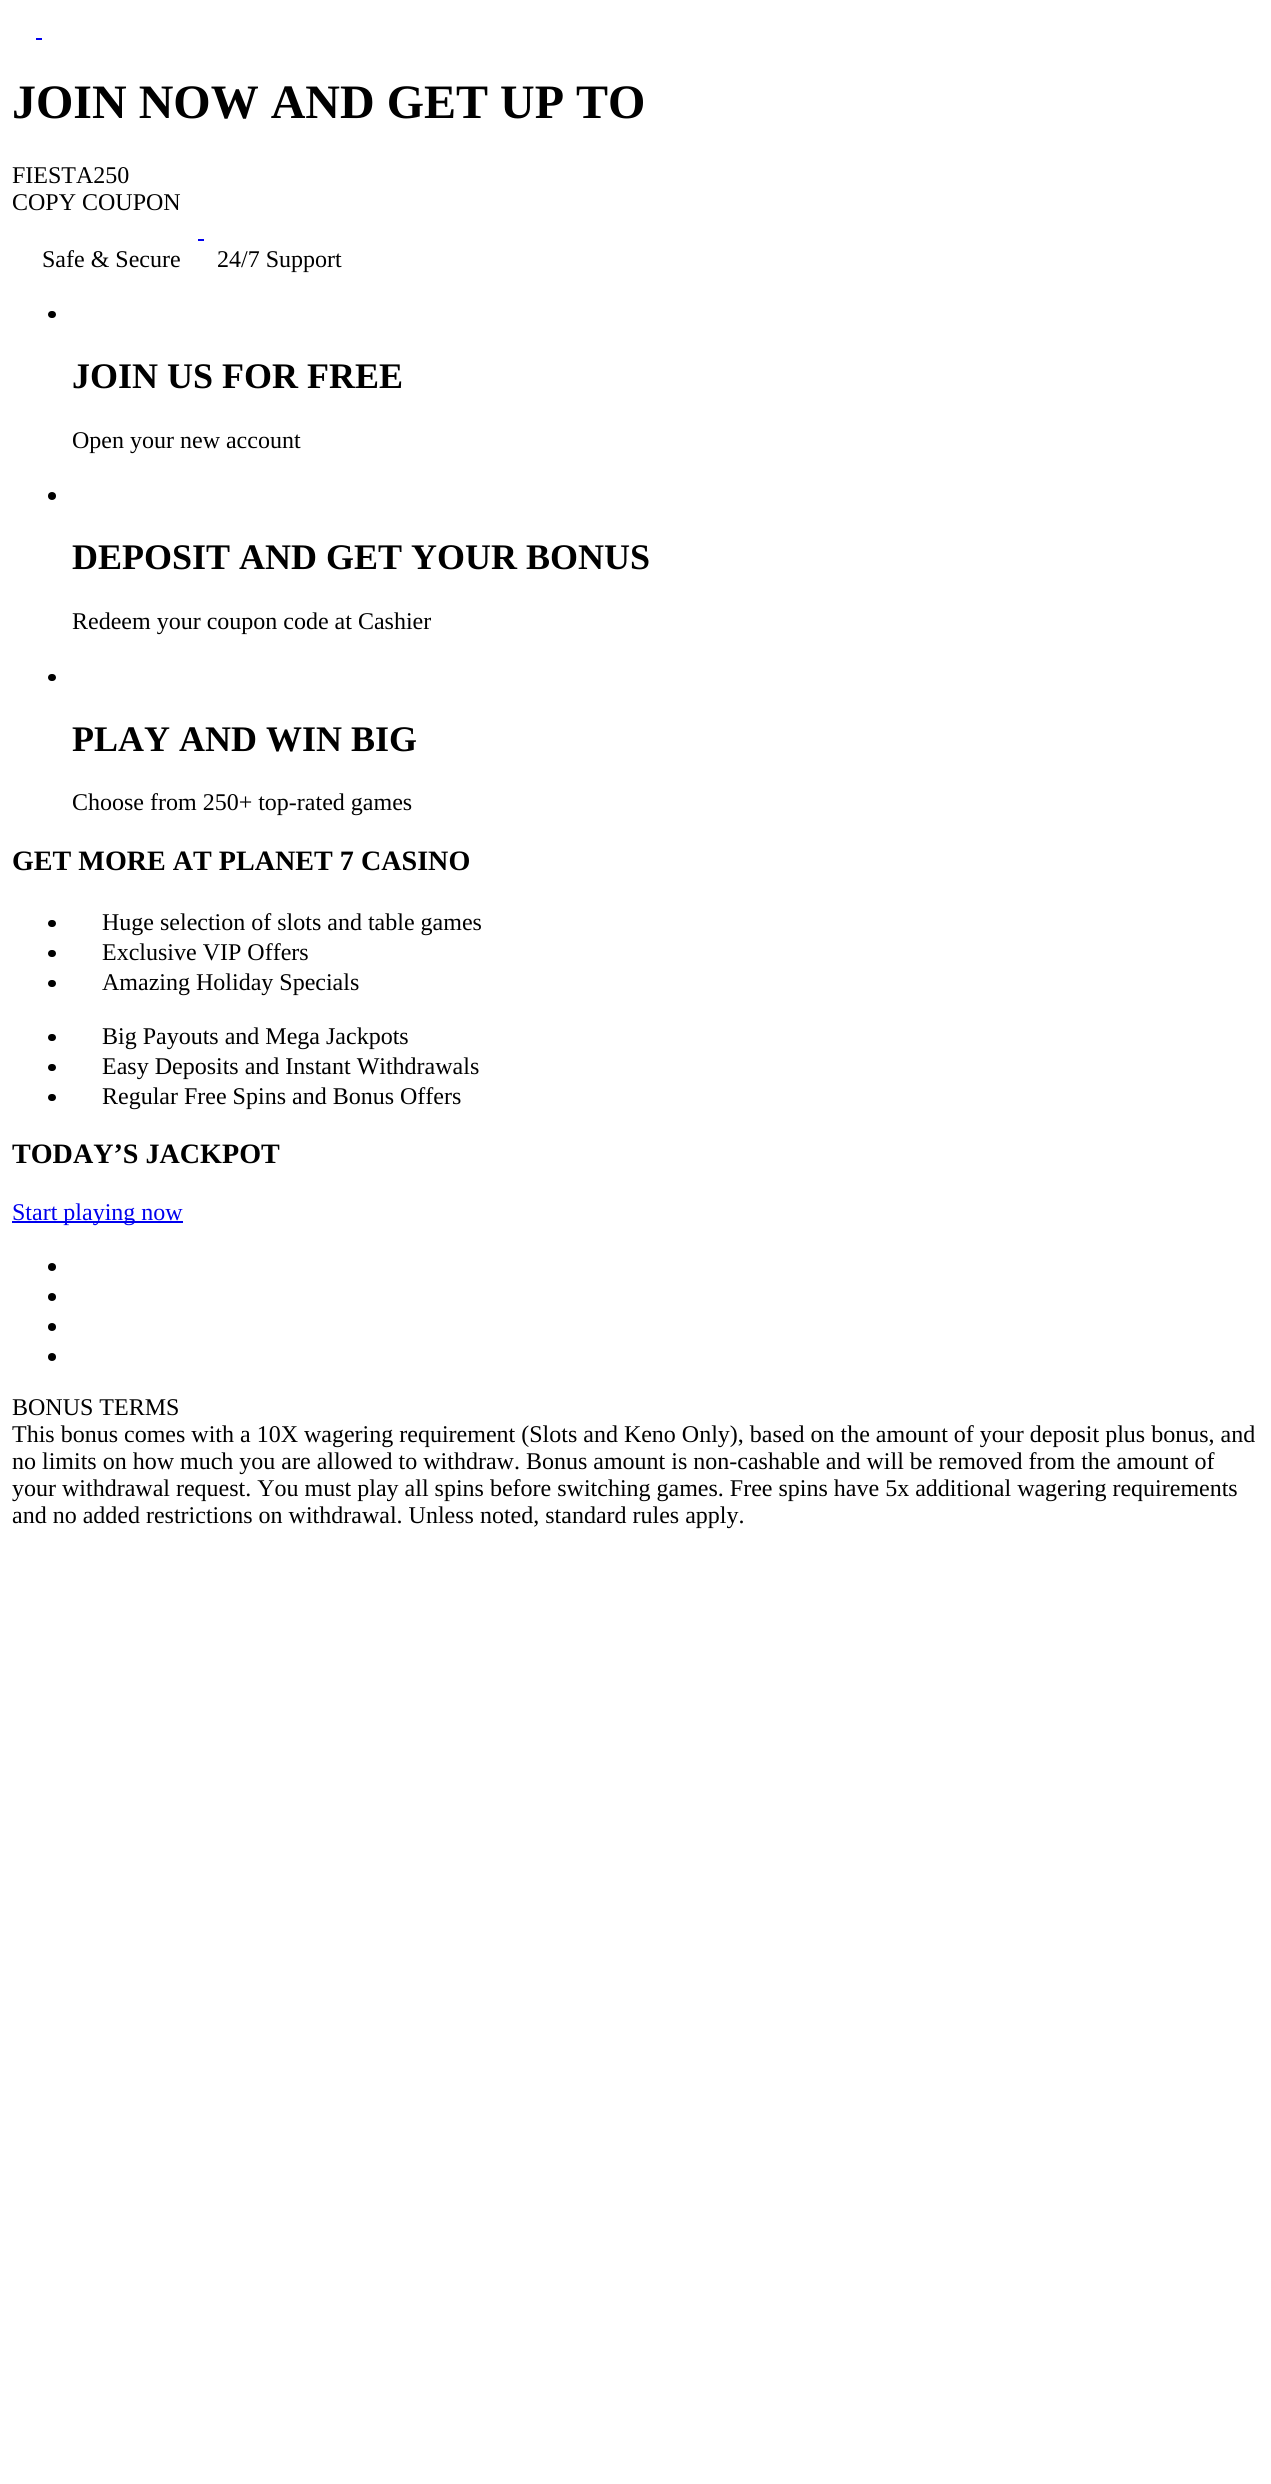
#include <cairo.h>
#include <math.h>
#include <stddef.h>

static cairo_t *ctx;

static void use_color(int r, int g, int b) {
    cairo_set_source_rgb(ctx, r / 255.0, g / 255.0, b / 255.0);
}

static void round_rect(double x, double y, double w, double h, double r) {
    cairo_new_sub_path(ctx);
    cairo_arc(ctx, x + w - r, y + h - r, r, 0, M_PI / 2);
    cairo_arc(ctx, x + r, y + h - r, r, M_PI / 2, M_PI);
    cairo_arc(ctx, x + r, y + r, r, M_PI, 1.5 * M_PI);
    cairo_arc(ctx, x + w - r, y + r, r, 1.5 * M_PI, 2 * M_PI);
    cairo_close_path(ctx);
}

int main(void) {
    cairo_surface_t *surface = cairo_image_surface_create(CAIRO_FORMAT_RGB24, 1271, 2484);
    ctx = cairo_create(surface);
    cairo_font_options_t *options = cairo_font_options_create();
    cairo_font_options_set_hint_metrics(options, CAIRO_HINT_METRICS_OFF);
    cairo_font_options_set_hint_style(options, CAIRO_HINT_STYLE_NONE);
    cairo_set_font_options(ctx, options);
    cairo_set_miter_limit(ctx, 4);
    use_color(255, 255, 255);
    cairo_paint(ctx);
    use_color(0, 0, 238);
    cairo_rectangle(ctx, 36, 38, 6, 2);
    cairo_fill(ctx);
    cairo_select_font_face(ctx, "Liberation Serif", CAIRO_FONT_SLANT_NORMAL, CAIRO_FONT_WEIGHT_BOLD);
    cairo_set_font_size(ctx, 48);
    use_color(0, 0, 0);
    cairo_move_to(ctx, 12, 118);
    cairo_show_text(ctx, "JOIN NOW AND GET UP TO");
    cairo_select_font_face(ctx, "Liberation Serif", CAIRO_FONT_SLANT_NORMAL, CAIRO_FONT_WEIGHT_NORMAL);
    cairo_set_font_size(ctx, 24);
    cairo_move_to(ctx, 12, 183);
    cairo_show_text(ctx, "FIESTA250");
    cairo_move_to(ctx, 12, 210);
    cairo_show_text(ctx, "COPY COUPON");
    use_color(0, 0, 238);
    cairo_rectangle(ctx, 198, 239, 6, 2);
    cairo_fill(ctx);
    use_color(0, 0, 0);
    cairo_move_to(ctx, 42, 267);
    cairo_show_text(ctx, "Safe & Secure");
    cairo_move_to(ctx, 217, 267);
    cairo_show_text(ctx, "24/7 Support");
    round_rect(48, 311, 8, 7, 3.5);
    cairo_fill(ctx);
    cairo_select_font_face(ctx, "Liberation Serif", CAIRO_FONT_SLANT_NORMAL, CAIRO_FONT_WEIGHT_BOLD);
    cairo_set_font_size(ctx, 36);
    cairo_move_to(ctx, 72, 388);
    cairo_show_text(ctx, "JOIN US FOR FREE");
    cairo_select_font_face(ctx, "Liberation Serif", CAIRO_FONT_SLANT_NORMAL, CAIRO_FONT_WEIGHT_NORMAL);
    cairo_set_font_size(ctx, 24);
    cairo_move_to(ctx, 72, 448);
    cairo_show_text(ctx, "Open your new account");
    cairo_new_path(ctx);
    cairo_arc(ctx, 52, 496, 4, 0, 2 * M_PI);
    cairo_fill(ctx);
    cairo_select_font_face(ctx, "Liberation Serif", CAIRO_FONT_SLANT_NORMAL, CAIRO_FONT_WEIGHT_BOLD);
    cairo_set_font_size(ctx, 36);
    cairo_move_to(ctx, 72, 569);
    cairo_show_text(ctx, "DEPOSIT AND GET YOUR BONUS");
    cairo_select_font_face(ctx, "Liberation Serif", CAIRO_FONT_SLANT_NORMAL, CAIRO_FONT_WEIGHT_NORMAL);
    cairo_set_font_size(ctx, 24);
    cairo_move_to(ctx, 72, 629);
    cairo_show_text(ctx, "Redeem your coupon code at Cashier");
    round_rect(48, 674, 8, 7, 3.5);
    cairo_fill(ctx);
    cairo_select_font_face(ctx, "Liberation Serif", CAIRO_FONT_SLANT_NORMAL, CAIRO_FONT_WEIGHT_BOLD);
    cairo_set_font_size(ctx, 36);
    cairo_move_to(ctx, 72, 751);
    cairo_show_text(ctx, "PLAY AND WIN BIG");
    cairo_select_font_face(ctx, "Liberation Serif", CAIRO_FONT_SLANT_NORMAL, CAIRO_FONT_WEIGHT_NORMAL);
    cairo_set_font_size(ctx, 24);
    cairo_move_to(ctx, 72, 810);
    cairo_show_text(ctx, "Choose from 250+ top-rated games");
    cairo_select_font_face(ctx, "Liberation Serif", CAIRO_FONT_SLANT_NORMAL, CAIRO_FONT_WEIGHT_BOLD);
    cairo_set_font_size(ctx, 28.1);
    cairo_move_to(ctx, 12, 870);
    cairo_show_text(ctx, "GET MORE AT PLANET 7 CASINO");
    round_rect(48, 920, 8, 7, 3.5);
    cairo_fill(ctx);
    cairo_select_font_face(ctx, "Liberation Serif", CAIRO_FONT_SLANT_NORMAL, CAIRO_FONT_WEIGHT_NORMAL);
    cairo_set_font_size(ctx, 24);
    cairo_move_to(ctx, 102, 930);
    cairo_show_text(ctx, "Huge selection of slots and table games");
    round_rect(48, 950, 8, 7, 3.5);
    cairo_fill(ctx);
    cairo_move_to(ctx, 102, 960);
    cairo_show_text(ctx, "Exclusive VIP Offers");
    round_rect(48, 980, 8, 7, 3.5);
    cairo_fill(ctx);
    cairo_move_to(ctx, 102, 990);
    cairo_show_text(ctx, "Amazing Holiday Specials");
    round_rect(48, 1034, 8, 7, 3.5);
    cairo_fill(ctx);
    cairo_move_to(ctx, 102, 1044);
    cairo_show_text(ctx, "Big Payouts and Mega Jackpots");
    round_rect(48, 1064, 8, 7, 3.5);
    cairo_fill(ctx);
    cairo_move_to(ctx, 102, 1074);
    cairo_show_text(ctx, "Easy Deposits and Instant Withdrawals");
    round_rect(48, 1094, 8, 7, 3.5);
    cairo_fill(ctx);
    cairo_move_to(ctx, 102, 1104);
    cairo_show_text(ctx, "Regular Free Spins and Bonus Offers");
    cairo_select_font_face(ctx, "Liberation Serif", CAIRO_FONT_SLANT_NORMAL, CAIRO_FONT_WEIGHT_BOLD);
    cairo_set_font_size(ctx, 28.1);
    cairo_move_to(ctx, 12, 1163);
    cairo_show_text(ctx, "TODAY’S JACKPOT");
    use_color(0, 0, 238);
    cairo_rectangle(ctx, 12, 1221, 171, 2);
    cairo_fill(ctx);
    cairo_select_font_face(ctx, "Liberation Serif", CAIRO_FONT_SLANT_NORMAL, CAIRO_FONT_WEIGHT_NORMAL);
    cairo_set_font_size(ctx, 24);
    cairo_move_to(ctx, 12, 1220);
    cairo_show_text(ctx, "Start playing now");
    use_color(0, 0, 0);
    cairo_new_path(ctx);
    cairo_arc(ctx, 52, 1267, 4, 0, 2 * M_PI);
    cairo_fill(ctx);
    cairo_arc(ctx, 52, 1297, 4, 0, 2 * M_PI);
    cairo_fill(ctx);
    cairo_arc(ctx, 52, 1327, 4, 0, 2 * M_PI);
    cairo_fill(ctx);
    cairo_arc(ctx, 52, 1357, 4, 0, 2 * M_PI);
    cairo_fill(ctx);
    cairo_move_to(ctx, 12, 1415);
    cairo_show_text(ctx, "BONUS TERMS");
    cairo_move_to(ctx, 12, 1442);
    cairo_show_text(ctx, "This bonus comes with a 10X wagering requirement (Slots and Keno Only), based on the amount of your deposit plus bonus, and");
    cairo_move_to(ctx, 12, 1469);
    cairo_show_text(ctx, "no limits on how much you are allowed to withdraw. Bonus amount is non-cashable and will be removed from the amount of");
    cairo_move_to(ctx, 12, 1496);
    cairo_show_text(ctx, "your withdrawal request. You must play all spins before switching games. Free spins have 5x additional wagering requirements");
    cairo_move_to(ctx, 12, 1523);
    cairo_show_text(ctx, "and no added restrictions on withdrawal. Unless noted, standard rules apply.");
    cairo_surface_write_to_png(surface, "result.png");
    cairo_font_options_destroy(options);
    cairo_destroy(ctx);
    cairo_surface_destroy(surface);
    return 0;
}
